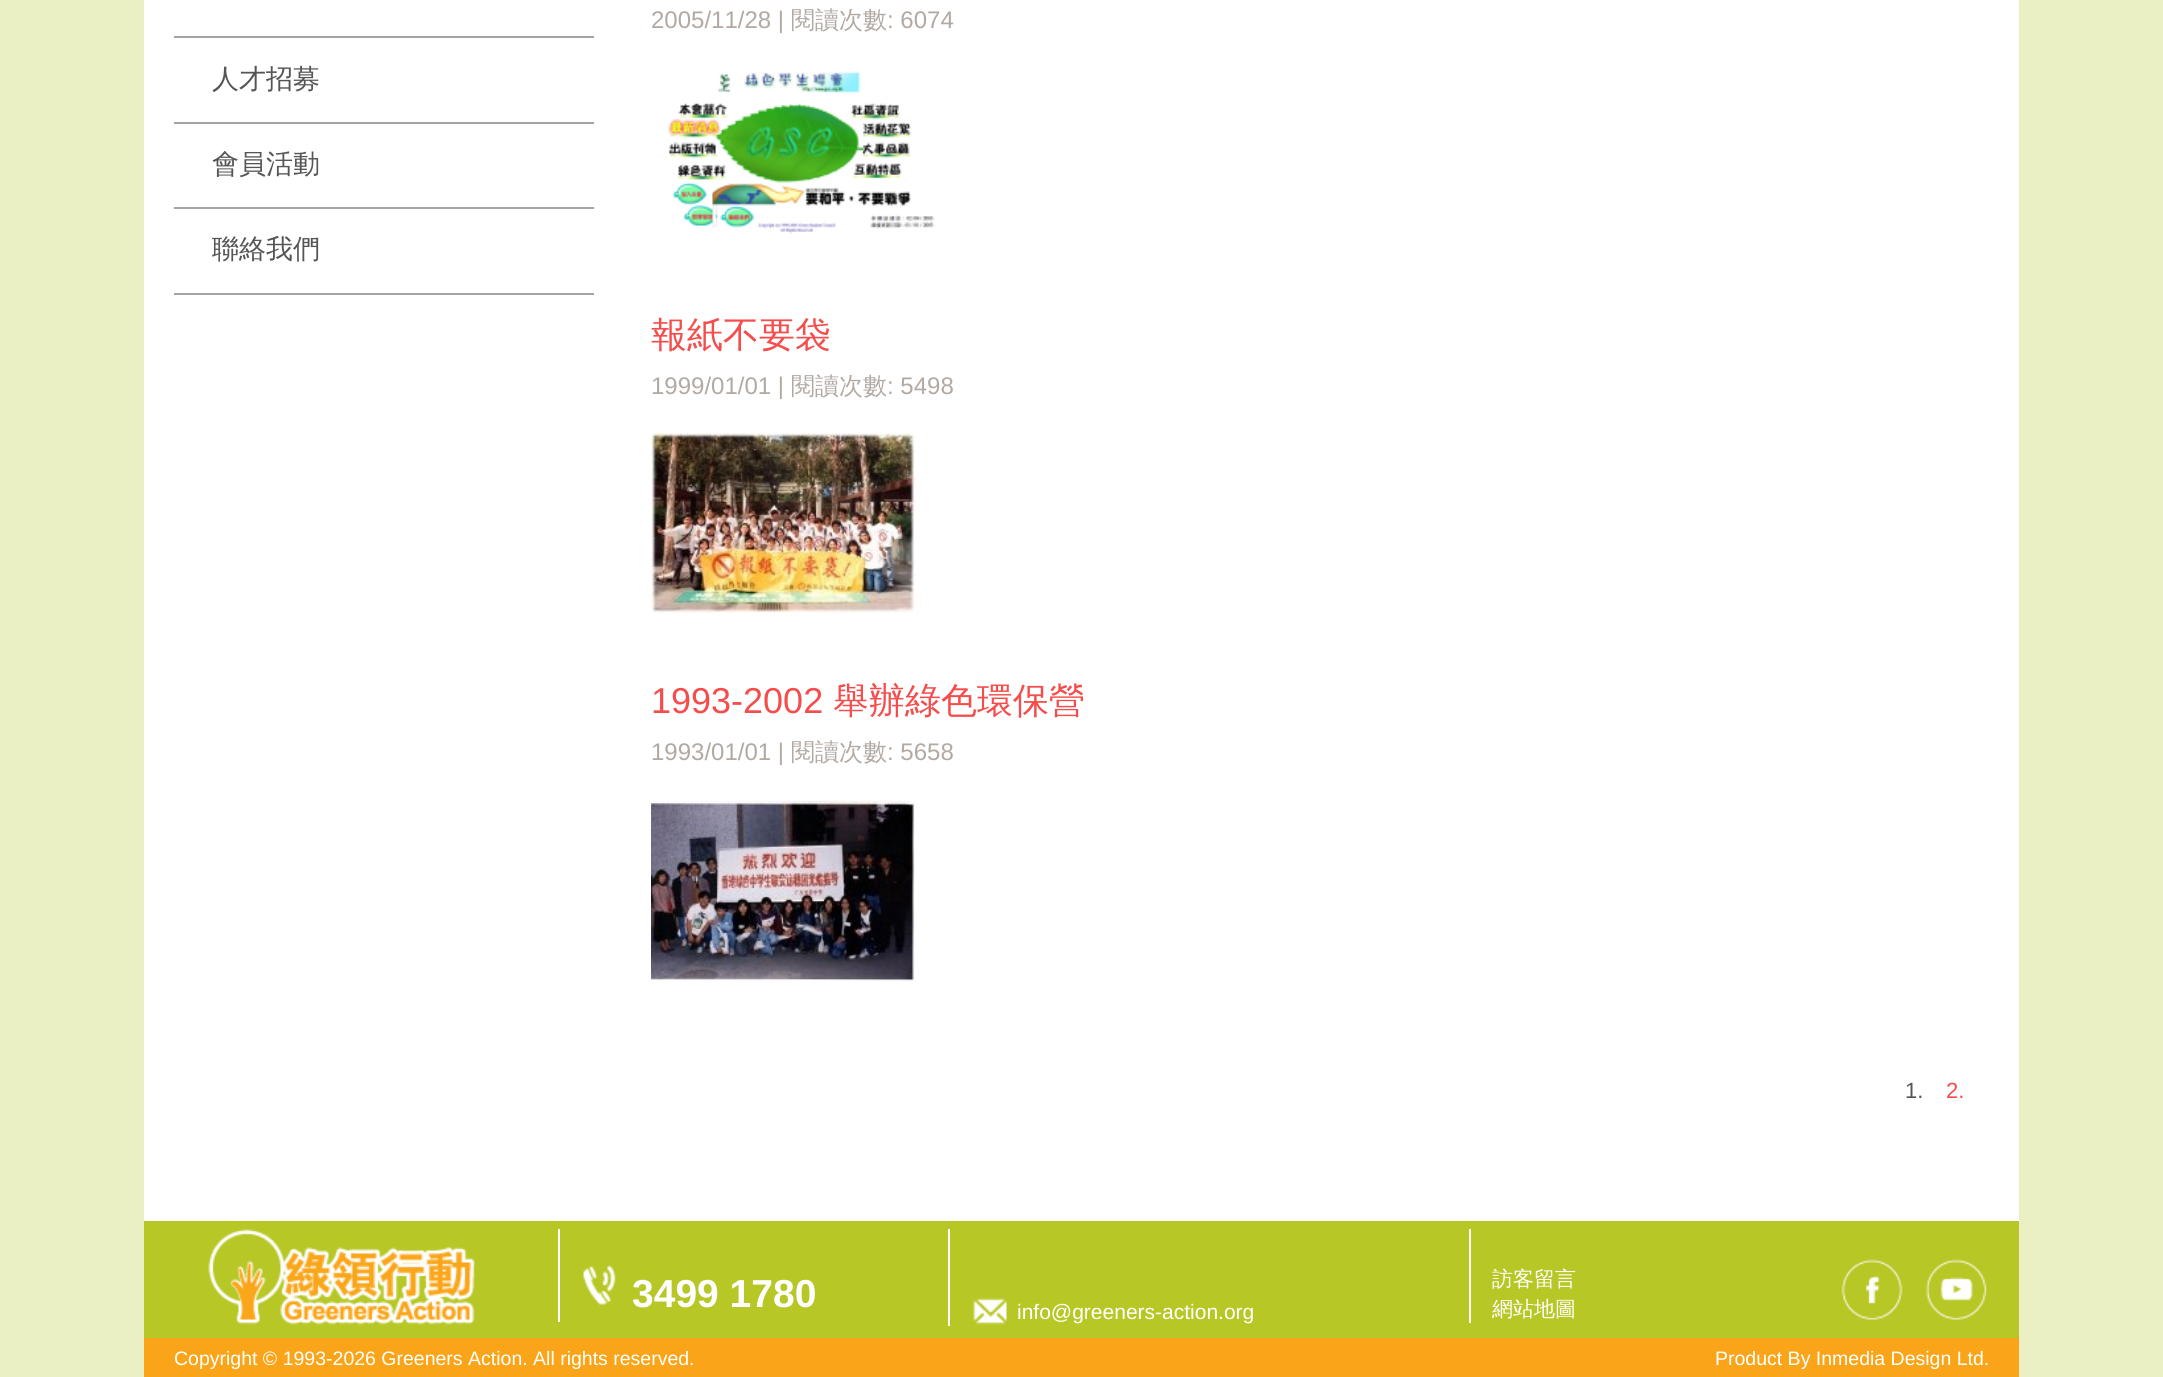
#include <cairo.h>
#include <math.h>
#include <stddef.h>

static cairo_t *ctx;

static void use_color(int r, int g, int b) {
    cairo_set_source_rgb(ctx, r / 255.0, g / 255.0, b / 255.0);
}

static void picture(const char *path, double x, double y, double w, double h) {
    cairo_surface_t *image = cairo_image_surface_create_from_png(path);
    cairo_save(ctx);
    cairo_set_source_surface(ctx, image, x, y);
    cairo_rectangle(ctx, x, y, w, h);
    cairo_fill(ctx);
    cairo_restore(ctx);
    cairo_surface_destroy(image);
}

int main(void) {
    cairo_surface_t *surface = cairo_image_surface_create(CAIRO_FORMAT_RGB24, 2163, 1377);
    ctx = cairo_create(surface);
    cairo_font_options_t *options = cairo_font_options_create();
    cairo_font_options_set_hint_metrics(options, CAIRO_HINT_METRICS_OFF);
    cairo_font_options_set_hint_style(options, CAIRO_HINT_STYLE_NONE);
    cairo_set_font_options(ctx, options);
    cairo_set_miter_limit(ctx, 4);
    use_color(235, 239, 196);
    cairo_paint(ctx);
    use_color(255, 255, 255);
    cairo_rectangle(ctx, 144, 0, 1875, 1221);
    cairo_fill(ctx);
    use_color(163, 163, 163);
    cairo_rectangle(ctx, 174, 36, 420, 2);
    cairo_fill(ctx);
    cairo_rectangle(ctx, 174, 122, 420, 2);
    cairo_fill(ctx);
    cairo_select_font_face(ctx, "WenQuanYi Zen Hei Medium", CAIRO_FONT_SLANT_NORMAL, CAIRO_FONT_WEIGHT_NORMAL);
    cairo_set_font_size(ctx, 27);
    use_color(85, 85, 85);
    cairo_move_to(ctx, 212, 88);
    cairo_show_text(ctx, "人才招募");
    use_color(163, 163, 163);
    cairo_rectangle(ctx, 174, 207, 420, 2);
    cairo_fill(ctx);
    use_color(85, 85, 85);
    cairo_move_to(ctx, 212, 173);
    cairo_show_text(ctx, "會員活動");
    use_color(163, 163, 163);
    cairo_rectangle(ctx, 174, 293, 420, 2);
    cairo_fill(ctx);
    use_color(85, 85, 85);
    cairo_move_to(ctx, 212, 258);
    cairo_show_text(ctx, "聯絡我們");
    cairo_select_font_face(ctx, "Liberation Sans", CAIRO_FONT_SLANT_NORMAL, CAIRO_FONT_WEIGHT_NORMAL);
    cairo_set_font_size(ctx, 24);
    use_color(178, 169, 163);
    cairo_move_to(ctx, 651, 28);
    cairo_show_text(ctx, "2005/11/28 |");
    cairo_select_font_face(ctx, "WenQuanYi Zen Hei Medium", CAIRO_FONT_SLANT_NORMAL, CAIRO_FONT_WEIGHT_NORMAL);
    cairo_move_to(ctx, 791, 28);
    cairo_show_text(ctx, "閱讀次數");
    cairo_select_font_face(ctx, "Liberation Sans", CAIRO_FONT_SLANT_NORMAL, CAIRO_FONT_WEIGHT_NORMAL);
    cairo_move_to(ctx, 887, 28);
    cairo_show_text(ctx, ": 6074");
    picture("img1.png", 668, 71, 267, 163);
    cairo_select_font_face(ctx, "WenQuanYi Zen Hei Medium", CAIRO_FONT_SLANT_NORMAL, CAIRO_FONT_WEIGHT_NORMAL);
    cairo_set_font_size(ctx, 36);
    use_color(245, 77, 76);
    cairo_move_to(ctx, 651, 347);
    cairo_show_text(ctx, "報紙不要袋");
    cairo_select_font_face(ctx, "Liberation Sans", CAIRO_FONT_SLANT_NORMAL, CAIRO_FONT_WEIGHT_NORMAL);
    cairo_set_font_size(ctx, 24);
    use_color(178, 169, 163);
    cairo_move_to(ctx, 651, 394);
    cairo_show_text(ctx, "1999/01/01 |");
    cairo_select_font_face(ctx, "WenQuanYi Zen Hei Medium", CAIRO_FONT_SLANT_NORMAL, CAIRO_FONT_WEIGHT_NORMAL);
    cairo_move_to(ctx, 791, 394);
    cairo_show_text(ctx, "閱讀次數");
    cairo_select_font_face(ctx, "Liberation Sans", CAIRO_FONT_SLANT_NORMAL, CAIRO_FONT_WEIGHT_NORMAL);
    cairo_move_to(ctx, 887, 394);
    cairo_show_text(ctx, ": 5498");
    picture("img2.png", 651, 433, 264, 180);
    cairo_set_font_size(ctx, 36);
    use_color(245, 77, 76);
    cairo_move_to(ctx, 651, 713);
    cairo_show_text(ctx, "1993-2002");
    cairo_select_font_face(ctx, "WenQuanYi Zen Hei Medium", CAIRO_FONT_SLANT_NORMAL, CAIRO_FONT_WEIGHT_NORMAL);
    cairo_move_to(ctx, 833, 713);
    cairo_show_text(ctx, "舉辦綠色環保營");
    cairo_select_font_face(ctx, "Liberation Sans", CAIRO_FONT_SLANT_NORMAL, CAIRO_FONT_WEIGHT_NORMAL);
    cairo_set_font_size(ctx, 24);
    use_color(178, 169, 163);
    cairo_move_to(ctx, 651, 760);
    cairo_show_text(ctx, "1993/01/01 |");
    cairo_select_font_face(ctx, "WenQuanYi Zen Hei Medium", CAIRO_FONT_SLANT_NORMAL, CAIRO_FONT_WEIGHT_NORMAL);
    cairo_move_to(ctx, 791, 760);
    cairo_show_text(ctx, "閱讀次數");
    cairo_select_font_face(ctx, "Liberation Sans", CAIRO_FONT_SLANT_NORMAL, CAIRO_FONT_WEIGHT_NORMAL);
    cairo_move_to(ctx, 887, 760);
    cairo_show_text(ctx, ": 5658");
    picture("img3.png", 651, 800, 264, 181);
    cairo_set_font_size(ctx, 22);
    use_color(85, 85, 85);
    cairo_move_to(ctx, 1905, 1098);
    cairo_show_text(ctx, "1.");
    use_color(245, 77, 76);
    cairo_move_to(ctx, 1946, 1098);
    cairo_show_text(ctx, "2.");
    use_color(183, 199, 38);
    cairo_rectangle(ctx, 144, 1221, 1875, 117);
    cairo_fill(ctx);
    picture("img4.png", 208, 1229, 267, 96);
    use_color(255, 255, 255);
    cairo_rectangle(ctx, 558, 1229, 2, 93);
    cairo_fill(ctx);
    picture("img5.png", 583, 1265, 33, 40);
    cairo_select_font_face(ctx, "Liberation Sans", CAIRO_FONT_SLANT_NORMAL, CAIRO_FONT_WEIGHT_BOLD);
    cairo_set_font_size(ctx, 39);
    cairo_move_to(ctx, 632, 1307);
    cairo_show_text(ctx, "3499 1780");
    cairo_rectangle(ctx, 1469, 1229, 2, 94);
    cairo_fill(ctx);
    cairo_select_font_face(ctx, "WenQuanYi Zen Hei Medium", CAIRO_FONT_SLANT_NORMAL, CAIRO_FONT_WEIGHT_NORMAL);
    cairo_set_font_size(ctx, 21);
    cairo_move_to(ctx, 1492, 1286);
    cairo_show_text(ctx, "訪客留言");
    cairo_move_to(ctx, 1492, 1316);
    cairo_show_text(ctx, "網站地圖");
    cairo_rectangle(ctx, 948, 1229, 2, 97);
    cairo_fill(ctx);
    picture("img6.png", 973, 1298, 34, 27);
    cairo_select_font_face(ctx, "Liberation Sans", CAIRO_FONT_SLANT_NORMAL, CAIRO_FONT_WEIGHT_NORMAL);
    cairo_move_to(ctx, 1017, 1319);
    cairo_show_text(ctx, "info@greeners-action.org");
    picture("img7.png", 1841, 1259, 62, 61);
    picture("img8.png", 1925, 1259, 62, 61);
    use_color(250, 165, 25);
    cairo_rectangle(ctx, 144, 1338, 1875, 39);
    cairo_fill(ctx);
    cairo_set_font_size(ctx, 19.5);
    use_color(255, 255, 255);
    cairo_move_to(ctx, 174, 1365);
    cairo_show_text(ctx, "Copyright © 1993-2026 Greeners Action. All rights reserved.");
    cairo_move_to(ctx, 1715, 1365);
    cairo_show_text(ctx, "Product By Inmedia Design Ltd.");
    cairo_surface_write_to_png(surface, "result.png");
    cairo_font_options_destroy(options);
    cairo_destroy(ctx);
    cairo_surface_destroy(surface);
    return 0;
}
